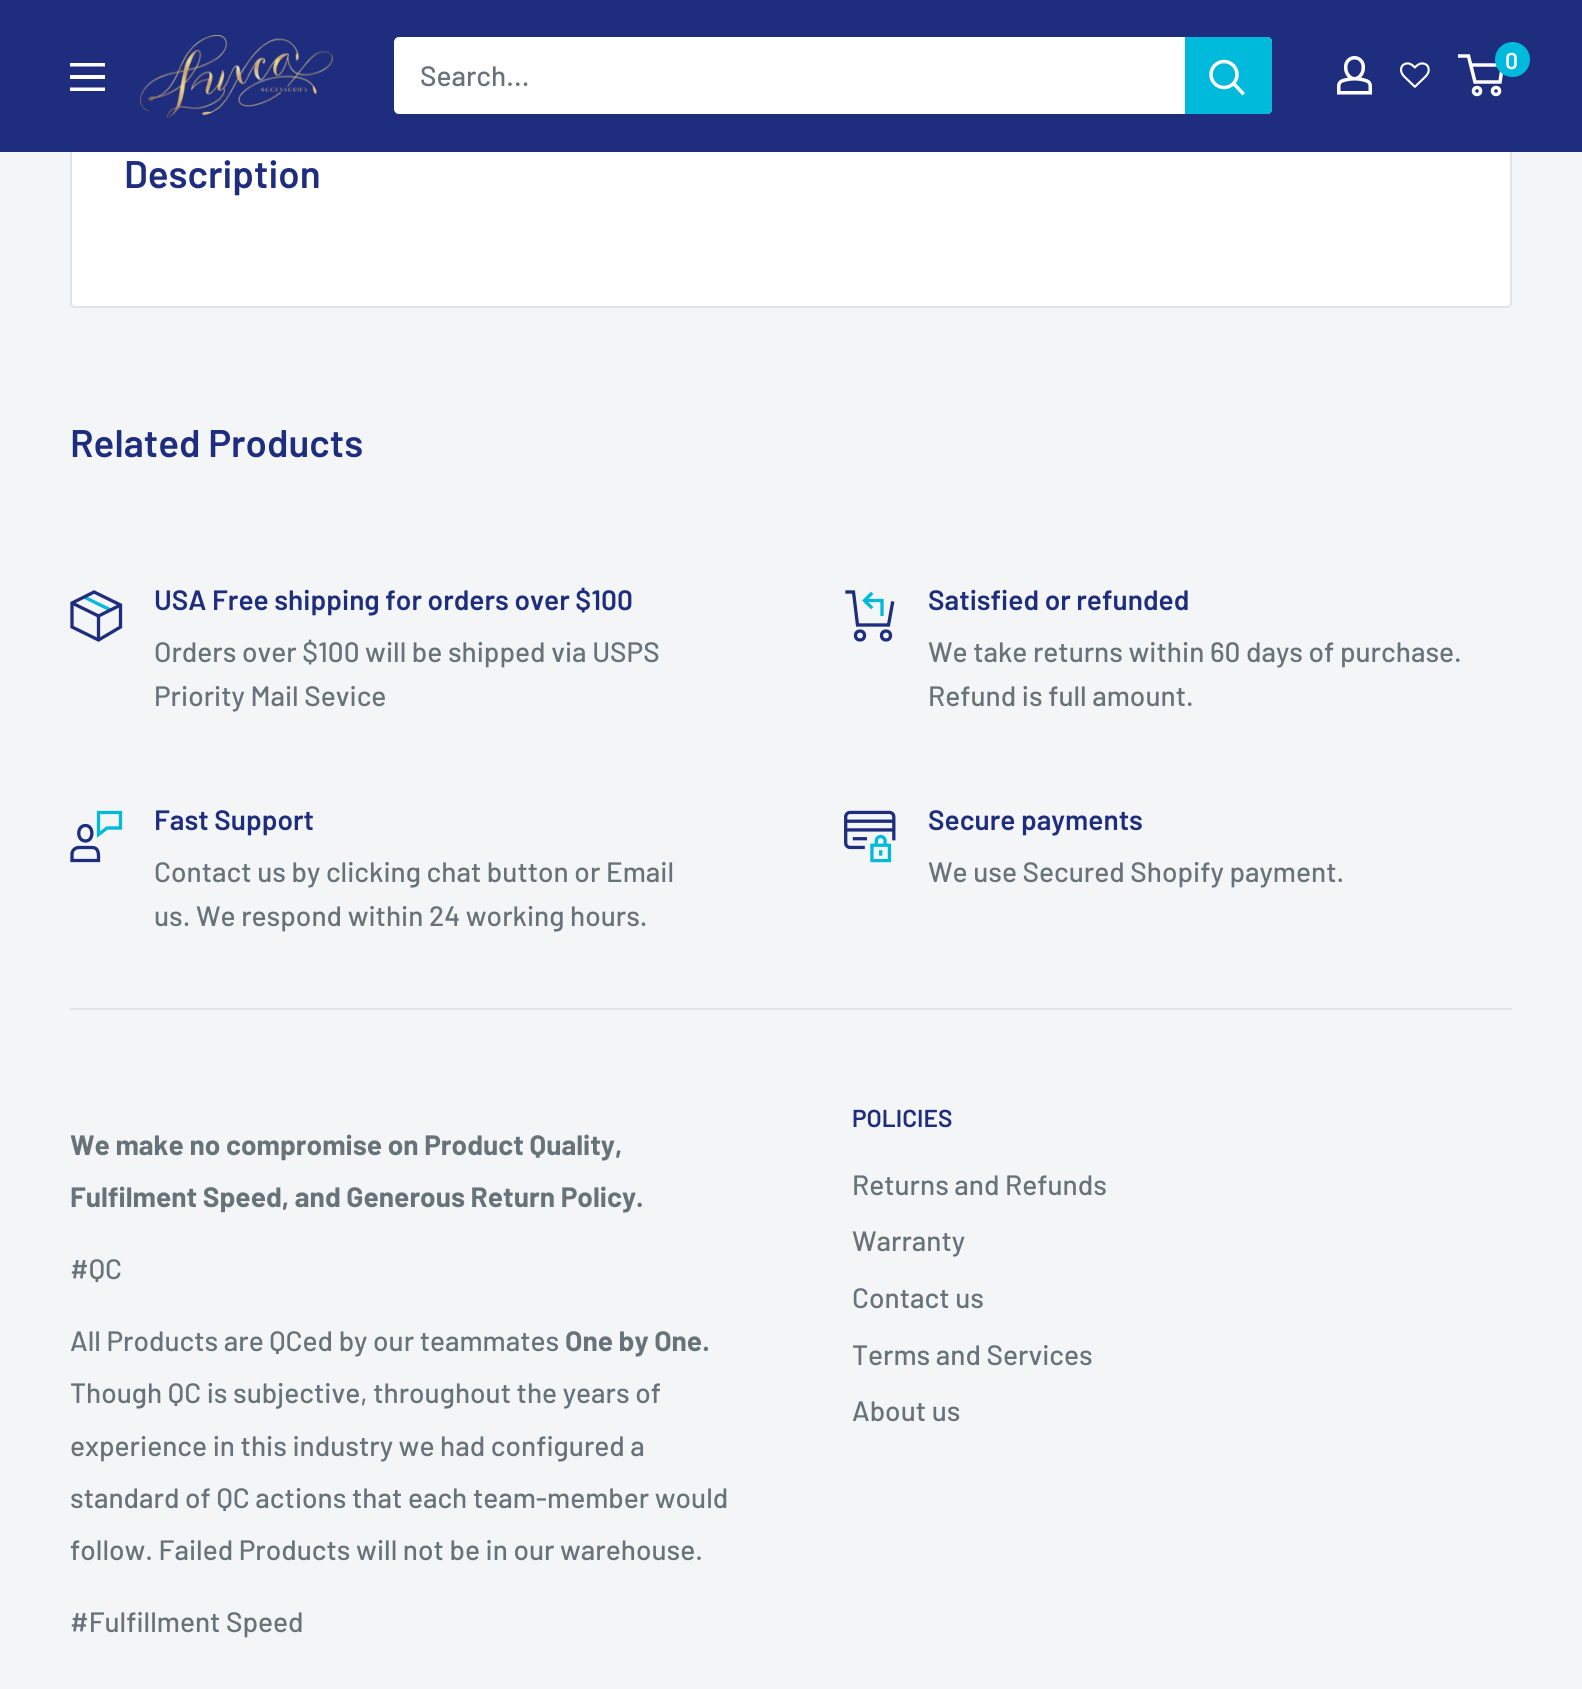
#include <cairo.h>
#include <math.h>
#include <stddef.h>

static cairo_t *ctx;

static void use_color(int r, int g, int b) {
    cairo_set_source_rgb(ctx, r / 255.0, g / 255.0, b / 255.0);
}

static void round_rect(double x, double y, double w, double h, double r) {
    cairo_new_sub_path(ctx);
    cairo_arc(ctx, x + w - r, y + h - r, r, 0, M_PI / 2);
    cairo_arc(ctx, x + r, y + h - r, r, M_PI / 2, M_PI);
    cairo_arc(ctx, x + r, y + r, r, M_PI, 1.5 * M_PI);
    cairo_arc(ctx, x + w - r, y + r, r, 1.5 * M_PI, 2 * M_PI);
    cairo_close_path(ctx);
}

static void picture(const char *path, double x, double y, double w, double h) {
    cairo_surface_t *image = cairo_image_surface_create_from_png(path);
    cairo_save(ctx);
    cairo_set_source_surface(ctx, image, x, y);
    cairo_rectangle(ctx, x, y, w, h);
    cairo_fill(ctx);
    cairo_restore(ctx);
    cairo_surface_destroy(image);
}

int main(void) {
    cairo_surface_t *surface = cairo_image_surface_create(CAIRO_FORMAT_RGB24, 1582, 1689);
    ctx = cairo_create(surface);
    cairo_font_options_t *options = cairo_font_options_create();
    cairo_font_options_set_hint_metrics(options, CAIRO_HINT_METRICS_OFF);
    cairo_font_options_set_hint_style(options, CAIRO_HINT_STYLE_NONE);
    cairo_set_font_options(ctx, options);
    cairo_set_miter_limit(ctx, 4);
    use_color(243, 245, 246);
    cairo_paint(ctx);
    use_color(255, 255, 255);
    round_rect(71, 90, 1440, 217, 4);
    cairo_fill_preserve(ctx);
    use_color(225, 227, 228);
    cairo_stroke(ctx);
    use_color(30, 45, 125);
    cairo_rectangle(ctx, 0, 0, 1582, 152);
    cairo_fill(ctx);
    picture("img1.png", 140, 35, 193, 82);
    picture("img2.png", 1337, 56, 35, 39);
    picture("img3.png", 1400, 62, 30, 26);
    cairo_arc(ctx, 1477, 91, 3.5, 0, 2 * M_PI);
    use_color(255, 255, 255);
    cairo_set_line_width(ctx, 3.5);
    cairo_stroke(ctx);
    cairo_arc(ctx, 1496, 91, 3.5, 0, 2 * M_PI);
    cairo_stroke(ctx);
    cairo_new_path(ctx);
    cairo_move_to(ctx, 1470.5, 65);
    cairo_line_to(ctx, 1502.5, 65);
    cairo_line_to(ctx, 1500, 82);
    cairo_line_to(ctx, 1475, 82);
    cairo_line_to(ctx, 1468.5, 56);
    cairo_line_to(ctx, 1458, 56);
    cairo_stroke(ctx);
    use_color(0, 186, 219);
    cairo_arc(ctx, 1512.5, 59.5, 17.5, 0, 2 * M_PI);
    cairo_fill(ctx);
    cairo_select_font_face(ctx, "Barlow SemiBold", CAIRO_FONT_SLANT_NORMAL, CAIRO_FONT_WEIGHT_NORMAL);
    cairo_set_font_size(ctx, 23);
    use_color(255, 255, 255);
    cairo_move_to(ctx, 1505, 69);
    cairo_show_text(ctx, "0");
    cairo_set_fill_rule(ctx, CAIRO_FILL_RULE_EVEN_ODD);
    cairo_new_path(ctx);
    cairo_move_to(ctx, 70, 87.5);
    cairo_line_to(ctx, 105, 87.5);
    cairo_line_to(ctx, 105, 91);
    cairo_line_to(ctx, 70, 91);
    cairo_close_path(ctx);
    cairo_move_to(ctx, 70, 63);
    cairo_line_to(ctx, 105, 63);
    cairo_line_to(ctx, 105, 66.5);
    cairo_line_to(ctx, 70, 66.5);
    cairo_close_path(ctx);
    cairo_move_to(ctx, 70, 75);
    cairo_line_to(ctx, 105, 75);
    cairo_line_to(ctx, 105, 79);
    cairo_line_to(ctx, 70, 79);
    cairo_close_path(ctx);
    cairo_fill(ctx);
    round_rect(394, 37, 878, 77, 5);
    cairo_fill(ctx);
    cairo_select_font_face(ctx, "Barlow Medium", CAIRO_FONT_SLANT_NORMAL, CAIRO_FONT_WEIGHT_NORMAL);
    cairo_set_font_size(ctx, 28);
    use_color(103, 114, 121);
    cairo_move_to(ctx, 420, 86);
    cairo_show_text(ctx, "Search...");
    use_color(0, 186, 219);
    cairo_new_path(ctx);
    cairo_move_to(ctx, 1185, 37);
    cairo_line_to(ctx, 1267, 37);
    cairo_curve_to(ctx, 1270, 37, 1272, 39, 1272, 42);
    cairo_line_to(ctx, 1272, 109);
    cairo_curve_to(ctx, 1272, 112, 1270, 114, 1267, 114);
    cairo_line_to(ctx, 1185, 114);
    cairo_close_path(ctx);
    cairo_fill(ctx);
    cairo_new_path(ctx);
    cairo_move_to(ctx, 1242.5, 93);
    cairo_line_to(ctx, 1234, 84);
    use_color(255, 255, 255);
    cairo_set_line_cap(ctx, CAIRO_LINE_CAP_SQUARE);
    cairo_stroke(ctx);
    cairo_arc(ctx, 1224, 74.5, 13, 0, 2 * M_PI);
    cairo_set_line_cap(ctx, CAIRO_LINE_CAP_BUTT);
    cairo_stroke(ctx);
    cairo_select_font_face(ctx, "Barlow SemiBold", CAIRO_FONT_SLANT_NORMAL, CAIRO_FONT_WEIGHT_NORMAL);
    cairo_set_font_size(ctx, 38.5);
    use_color(30, 45, 125);
    cairo_move_to(ctx, 124, 188);
    cairo_show_text(ctx, "Description");
    cairo_move_to(ctx, 70, 457);
    cairo_show_text(ctx, "Related Products");
    cairo_new_path(ctx);
    cairo_move_to(ctx, 84, 597);
    cairo_line_to(ctx, 110.5, 610);
    use_color(0, 186, 219);
    cairo_set_line_width(ctx, 3.3);
    cairo_stroke(ctx);
    cairo_new_path(ctx);
    cairo_move_to(ctx, 120.5, 605);
    cairo_line_to(ctx, 98.5, 616);
    cairo_line_to(ctx, 72, 603);
    cairo_move_to(ctx, 98.5, 616);
    cairo_line_to(ctx, 98.5, 640);
    use_color(30, 45, 125);
    cairo_stroke(ctx);
    cairo_new_path(ctx);
    cairo_move_to(ctx, 120.5, 605);
    cairo_line_to(ctx, 120.5, 627);
    cairo_line_to(ctx, 98.5, 640);
    cairo_line_to(ctx, 72, 627);
    cairo_line_to(ctx, 72, 603);
    cairo_line_to(ctx, 94, 592);
    cairo_close_path(ctx);
    cairo_set_line_cap(ctx, CAIRO_LINE_CAP_SQUARE);
    cairo_stroke(ctx);
    cairo_set_font_size(ctx, 28);
    cairo_move_to(ctx, 154, 610);
    cairo_show_text(ctx, "USA Free shipping for orders over $100");
    cairo_select_font_face(ctx, "Barlow Medium", CAIRO_FONT_SLANT_NORMAL, CAIRO_FONT_WEIGHT_NORMAL);
    use_color(103, 114, 121);
    cairo_move_to(ctx, 154, 662);
    cairo_show_text(ctx, "Orders over $100 will be shipped via USPS");
    cairo_move_to(ctx, 154, 706);
    cairo_show_text(ctx, "Priority Mail Sevice");
    cairo_new_path(ctx);
    cairo_move_to(ctx, 864.5, 600.5);
    cairo_line_to(ctx, 882, 600.5);
    cairo_line_to(ctx, 882, 616);
    use_color(0, 186, 219);
    cairo_set_line_cap(ctx, CAIRO_LINE_CAP_BUTT);
    cairo_stroke(ctx);
    cairo_new_path(ctx);
    cairo_move_to(ctx, 871, 607);
    cairo_line_to(ctx, 864.5, 600.5);
    cairo_line_to(ctx, 871, 594);
    cairo_set_line_cap(ctx, CAIRO_LINE_CAP_SQUARE);
    cairo_stroke(ctx);
    cairo_new_path(ctx);
    cairo_move_to(ctx, 892.5, 603);
    cairo_line_to(ctx, 888.5, 625);
    cairo_line_to(ctx, 857.5, 625);
    cairo_line_to(ctx, 853.5, 592);
    cairo_line_to(ctx, 847, 592);
    use_color(30, 45, 125);
    cairo_stroke(ctx);
    cairo_arc(ctx, 860, 635.5, 4.5, 0, 2 * M_PI);
    cairo_set_line_cap(ctx, CAIRO_LINE_CAP_BUTT);
    cairo_stroke(ctx);
    cairo_arc(ctx, 886, 635.5, 4.5, 0, 2 * M_PI);
    cairo_stroke(ctx);
    cairo_select_font_face(ctx, "Barlow SemiBold", CAIRO_FONT_SLANT_NORMAL, CAIRO_FONT_WEIGHT_NORMAL);
    cairo_move_to(ctx, 928, 610);
    cairo_show_text(ctx, "Satisfied or refunded");
    cairo_select_font_face(ctx, "Barlow Medium", CAIRO_FONT_SLANT_NORMAL, CAIRO_FONT_WEIGHT_NORMAL);
    use_color(103, 114, 121);
    cairo_move_to(ctx, 928, 662);
    cairo_show_text(ctx, "We take returns within 60 days of purchase.");
    cairo_move_to(ctx, 928, 706);
    cairo_show_text(ctx, "Refund is full amount.");
    cairo_new_path(ctx);
    cairo_move_to(ctx, 92, 847.5);
    cairo_line_to(ctx, 79, 847.5);
    cairo_curve_to(ctx, 75, 847.5, 72, 850.5, 72, 854);
    cairo_line_to(ctx, 72, 860.5);
    cairo_line_to(ctx, 98.5, 860.5);
    cairo_curve_to(ctx, 98.5, 855.5, 99.5, 847.5, 92, 847.5);
    cairo_close_path(ctx);
    cairo_move_to(ctx, 85.5, 841);
    cairo_curve_to(ctx, 76.5, 841, 76.5, 825.5, 85.5, 825.5);
    cairo_curve_to(ctx, 94, 825.5, 94, 841, 85.5, 841);
    cairo_close_path(ctx);
    use_color(30, 45, 125);
    cairo_set_line_cap(ctx, CAIRO_LINE_CAP_SQUARE);
    cairo_stroke(ctx);
    cairo_new_path(ctx);
    cairo_move_to(ctx, 98.5, 812.5);
    cairo_line_to(ctx, 98.5, 834.5);
    cairo_line_to(ctx, 107, 828);
    cairo_line_to(ctx, 120.5, 828);
    cairo_line_to(ctx, 120.5, 812.5);
    cairo_close_path(ctx);
    use_color(0, 186, 219);
    cairo_stroke(ctx);
    cairo_select_font_face(ctx, "Barlow SemiBold", CAIRO_FONT_SLANT_NORMAL, CAIRO_FONT_WEIGHT_NORMAL);
    use_color(30, 45, 125);
    cairo_move_to(ctx, 154, 830);
    cairo_show_text(ctx, "Fast Support");
    cairo_select_font_face(ctx, "Barlow Medium", CAIRO_FONT_SLANT_NORMAL, CAIRO_FONT_WEIGHT_NORMAL);
    use_color(103, 114, 121);
    cairo_move_to(ctx, 154, 882);
    cairo_show_text(ctx, "Contact us by clicking chat button or Email");
    cairo_move_to(ctx, 154, 926);
    cairo_show_text(ctx, "us. We respond within 24 working hours.");
    picture("img4.png", 844, 810, 52, 53);
    cairo_select_font_face(ctx, "Barlow SemiBold", CAIRO_FONT_SLANT_NORMAL, CAIRO_FONT_WEIGHT_NORMAL);
    use_color(30, 45, 125);
    cairo_move_to(ctx, 928, 830);
    cairo_show_text(ctx, "Secure payments");
    cairo_select_font_face(ctx, "Barlow Medium", CAIRO_FONT_SLANT_NORMAL, CAIRO_FONT_WEIGHT_NORMAL);
    use_color(103, 114, 121);
    cairo_move_to(ctx, 928, 882);
    cairo_show_text(ctx, "We use Secured Shopify payment.");
    use_color(225, 227, 228);
    cairo_rectangle(ctx, 70, 1008, 1442, 2);
    cairo_fill(ctx);
    cairo_select_font_face(ctx, "Barlow", CAIRO_FONT_SLANT_NORMAL, CAIRO_FONT_WEIGHT_BOLD);
    use_color(103, 114, 121);
    cairo_move_to(ctx, 70, 1155);
    cairo_show_text(ctx, "We make no compromise on Product Quality,");
    cairo_move_to(ctx, 70, 1207);
    cairo_show_text(ctx, "Fulfilment Speed, and Generous Return Policy.");
    cairo_select_font_face(ctx, "Barlow Medium", CAIRO_FONT_SLANT_NORMAL, CAIRO_FONT_WEIGHT_NORMAL);
    cairo_move_to(ctx, 70, 1279);
    cairo_show_text(ctx, "#QC");
    cairo_move_to(ctx, 70, 1351);
    cairo_show_text(ctx, "All Products are QCed by our teammates");
    cairo_select_font_face(ctx, "Barlow", CAIRO_FONT_SLANT_NORMAL, CAIRO_FONT_WEIGHT_BOLD);
    cairo_move_to(ctx, 565, 1351);
    cairo_show_text(ctx, "One by One.");
    cairo_select_font_face(ctx, "Barlow Medium", CAIRO_FONT_SLANT_NORMAL, CAIRO_FONT_WEIGHT_NORMAL);
    cairo_move_to(ctx, 70, 1403);
    cairo_show_text(ctx, "Though QC is subjective, throughout the years of");
    cairo_move_to(ctx, 70, 1456);
    cairo_show_text(ctx, "experience in this industry we had configured a");
    cairo_move_to(ctx, 70, 1508);
    cairo_show_text(ctx, "standard of QC actions that each team-member would");
    cairo_move_to(ctx, 70, 1560);
    cairo_show_text(ctx, "follow. Failed Products will not be in our warehouse.");
    cairo_move_to(ctx, 70, 1632);
    cairo_show_text(ctx, "#Fulfillment Speed");
    cairo_select_font_face(ctx, "Barlow SemiBold", CAIRO_FONT_SLANT_NORMAL, CAIRO_FONT_WEIGHT_NORMAL);
    cairo_set_font_size(ctx, 24.5);
    use_color(30, 45, 125);
    cairo_move_to(ctx, 852, 1127);
    cairo_show_text(ctx, "POLICIES");
    cairo_select_font_face(ctx, "Barlow Medium", CAIRO_FONT_SLANT_NORMAL, CAIRO_FONT_WEIGHT_NORMAL);
    cairo_set_font_size(ctx, 28);
    use_color(103, 114, 121);
    cairo_move_to(ctx, 852, 1195);
    cairo_show_text(ctx, "Returns and Refunds");
    cairo_move_to(ctx, 852, 1251);
    cairo_show_text(ctx, "Warranty");
    cairo_move_to(ctx, 852, 1308);
    cairo_show_text(ctx, "Contact us");
    cairo_move_to(ctx, 852, 1365);
    cairo_show_text(ctx, "Terms and Services");
    cairo_move_to(ctx, 852, 1421);
    cairo_show_text(ctx, "About us");
    cairo_surface_write_to_png(surface, "result.png");
    cairo_font_options_destroy(options);
    cairo_destroy(ctx);
    cairo_surface_destroy(surface);
    return 0;
}
